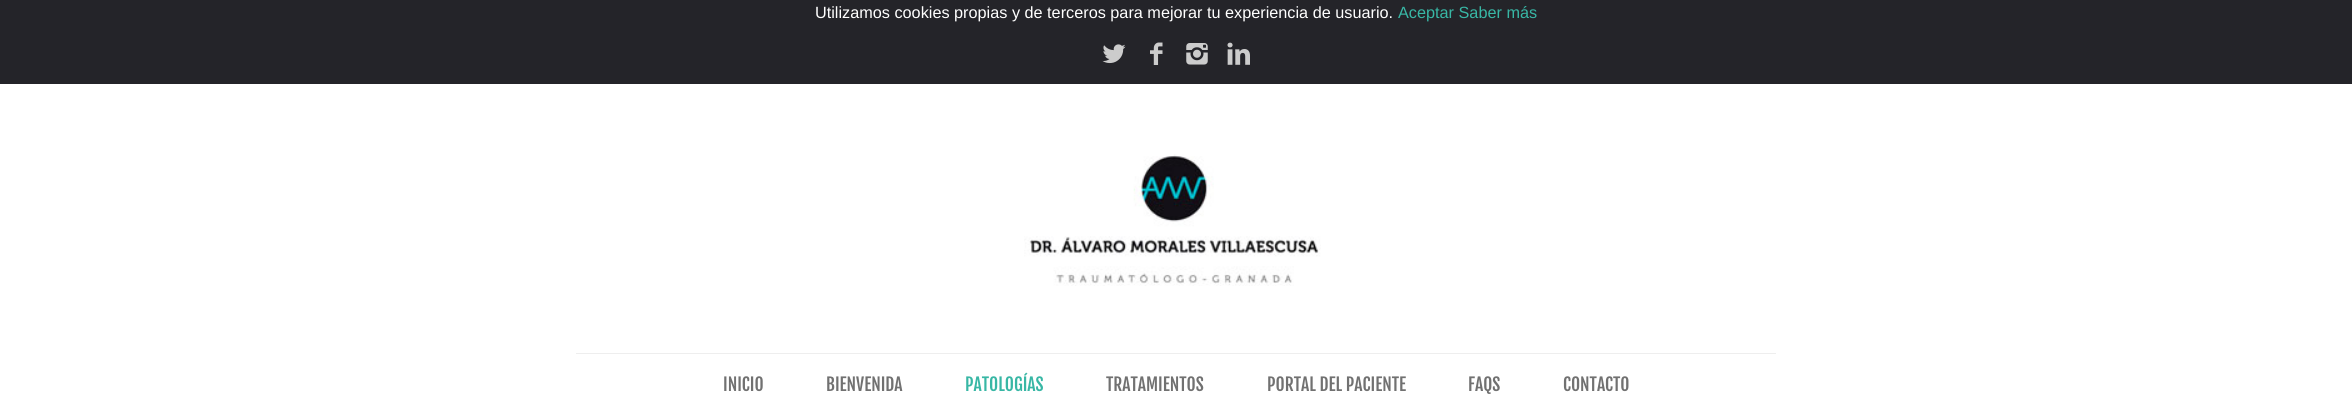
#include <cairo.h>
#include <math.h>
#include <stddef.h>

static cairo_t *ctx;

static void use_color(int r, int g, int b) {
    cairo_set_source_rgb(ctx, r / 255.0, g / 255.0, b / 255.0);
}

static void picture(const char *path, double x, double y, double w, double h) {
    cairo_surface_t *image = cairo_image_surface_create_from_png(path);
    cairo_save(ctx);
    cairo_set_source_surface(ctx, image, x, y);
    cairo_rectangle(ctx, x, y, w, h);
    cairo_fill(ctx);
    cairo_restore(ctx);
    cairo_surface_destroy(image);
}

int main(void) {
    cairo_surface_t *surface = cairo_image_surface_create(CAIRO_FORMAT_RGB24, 2352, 416);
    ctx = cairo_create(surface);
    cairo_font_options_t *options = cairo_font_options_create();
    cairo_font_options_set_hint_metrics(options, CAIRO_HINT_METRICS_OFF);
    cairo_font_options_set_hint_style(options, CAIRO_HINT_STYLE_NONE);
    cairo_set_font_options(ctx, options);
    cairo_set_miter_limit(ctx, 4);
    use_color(255, 255, 255);
    cairo_paint(ctx);
    use_color(36, 36, 41);
    cairo_rectangle(ctx, 0, 0, 2352, 84);
    cairo_fill(ctx);
    cairo_select_font_face(ctx, "Liberation Sans", CAIRO_FONT_SLANT_NORMAL, CAIRO_FONT_WEIGHT_NORMAL);
    cairo_set_font_size(ctx, 16.25);
    use_color(255, 255, 255);
    cairo_move_to(ctx, 815, 18);
    cairo_show_text(ctx, "Utilizamos cookies propias y de terceros para mejorar tu experiencia de usuario.");
    use_color(56, 183, 165);
    cairo_move_to(ctx, 1398, 18);
    cairo_show_text(ctx, "Aceptar Saber más");
    picture("img1.png", 1102, 44, 24, 20);
    picture("img2.png", 1150, 42, 13, 23);
    picture("img3.png", 1186, 43, 22, 22);
    picture("img4.png", 1227, 42, 23, 23);
    picture("img5.png", 1024, 154, 297, 132);
    use_color(238, 238, 238);
    cairo_rectangle(ctx, 576, 353, 1200, 1);
    cairo_fill(ctx);
    cairo_select_font_face(ctx, "Fjalla One", CAIRO_FONT_SLANT_NORMAL, CAIRO_FONT_WEIGHT_NORMAL);
    cairo_set_font_size(ctx, 17.5);
    use_color(113, 113, 113);
    cairo_move_to(ctx, 723, 391);
    cairo_show_text(ctx, "INICIO");
    cairo_move_to(ctx, 826, 391);
    cairo_show_text(ctx, "BIENVENIDA");
    use_color(56, 183, 165);
    cairo_move_to(ctx, 965, 391);
    cairo_show_text(ctx, "PATOLOGÍAS");
    use_color(113, 113, 113);
    cairo_move_to(ctx, 1106, 391);
    cairo_show_text(ctx, "TRATAMIENTOS");
    cairo_move_to(ctx, 1267, 391);
    cairo_show_text(ctx, "PORTAL DEL PACIENTE");
    cairo_move_to(ctx, 1468, 391);
    cairo_show_text(ctx, "FAQS");
    cairo_move_to(ctx, 1563, 391);
    cairo_show_text(ctx, "CONTACTO");
    cairo_surface_write_to_png(surface, "result.png");
    cairo_font_options_destroy(options);
    cairo_destroy(ctx);
    cairo_surface_destroy(surface);
    return 0;
}
